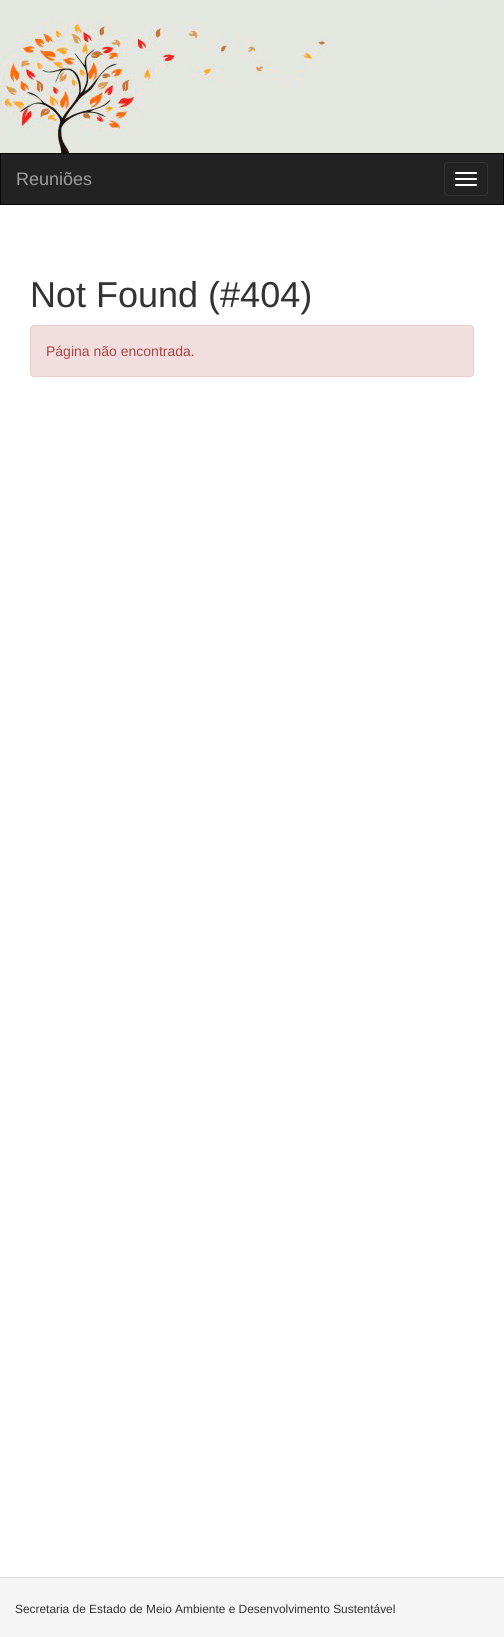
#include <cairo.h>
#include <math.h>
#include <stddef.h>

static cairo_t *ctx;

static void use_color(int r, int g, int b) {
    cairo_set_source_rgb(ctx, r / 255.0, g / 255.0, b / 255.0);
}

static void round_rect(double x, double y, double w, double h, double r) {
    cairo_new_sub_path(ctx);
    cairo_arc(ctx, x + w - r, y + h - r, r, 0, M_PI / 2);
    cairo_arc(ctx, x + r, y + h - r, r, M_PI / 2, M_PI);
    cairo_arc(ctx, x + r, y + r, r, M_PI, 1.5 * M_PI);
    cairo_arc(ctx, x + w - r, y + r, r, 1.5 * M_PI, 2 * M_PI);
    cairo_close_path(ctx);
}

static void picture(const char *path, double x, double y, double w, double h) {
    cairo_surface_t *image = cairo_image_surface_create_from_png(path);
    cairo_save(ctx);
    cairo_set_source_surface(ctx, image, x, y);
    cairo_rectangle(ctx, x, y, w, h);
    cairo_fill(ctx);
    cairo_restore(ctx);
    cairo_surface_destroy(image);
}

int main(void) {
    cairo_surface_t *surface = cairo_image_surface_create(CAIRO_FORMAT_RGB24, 504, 1637);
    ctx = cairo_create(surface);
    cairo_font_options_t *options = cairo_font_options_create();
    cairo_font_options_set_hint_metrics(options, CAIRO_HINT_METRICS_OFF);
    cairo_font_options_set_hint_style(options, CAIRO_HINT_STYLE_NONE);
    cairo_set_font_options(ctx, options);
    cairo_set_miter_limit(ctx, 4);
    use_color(255, 255, 255);
    cairo_paint(ctx);
    use_color(228, 230, 224);
    cairo_rectangle(ctx, 457, 0, 47, 153);
    cairo_fill(ctx);
    picture("img1.png", 0, 0, 457, 153);
    use_color(34, 34, 34);
    cairo_rectangle(ctx, 0.5, 153.5, 503, 51);
    cairo_fill_preserve(ctx);
    use_color(8, 8, 8);
    cairo_set_line_width(ctx, 1);
    cairo_stroke(ctx);
    cairo_select_font_face(ctx, "Liberation Sans", CAIRO_FONT_SLANT_NORMAL, CAIRO_FONT_WEIGHT_NORMAL);
    cairo_set_font_size(ctx, 18);
    use_color(157, 157, 157);
    cairo_move_to(ctx, 16, 185);
    cairo_show_text(ctx, "Reuniões");
    round_rect(444.5, 162.5, 43, 33, 3.5);
    use_color(51, 51, 51);
    cairo_stroke(ctx);
    use_color(255, 255, 255);
    round_rect(455, 172, 22, 2, 1);
    cairo_fill(ctx);
    round_rect(455, 178, 22, 2, 1);
    cairo_fill(ctx);
    round_rect(455, 184, 22, 2, 1);
    cairo_fill(ctx);
    cairo_set_font_size(ctx, 36);
    use_color(51, 51, 51);
    cairo_move_to(ctx, 30, 307);
    cairo_show_text(ctx, "Not Found (#404)");
    use_color(242, 222, 222);
    round_rect(30.5, 325.5, 443, 51, 3.5);
    cairo_fill_preserve(ctx);
    use_color(235, 204, 209);
    cairo_stroke(ctx);
    cairo_set_font_size(ctx, 14);
    use_color(169, 68, 66);
    cairo_move_to(ctx, 46, 356);
    cairo_show_text(ctx, "Página não encontrada.");
    use_color(245, 245, 245);
    cairo_rectangle(ctx, 0, 1578, 504, 59);
    cairo_fill(ctx);
    use_color(221, 221, 221);
    cairo_rectangle(ctx, 0, 1577, 504, 1);
    cairo_fill(ctx);
    cairo_set_font_size(ctx, 11.9);
    use_color(51, 51, 51);
    cairo_move_to(ctx, 15, 1613);
    cairo_show_text(ctx, "Secretaria de Estado de Meio Ambiente e Desenvolvimento Sustentável");
    cairo_surface_write_to_png(surface, "result.png");
    cairo_font_options_destroy(options);
    cairo_destroy(ctx);
    cairo_surface_destroy(surface);
    return 0;
}
